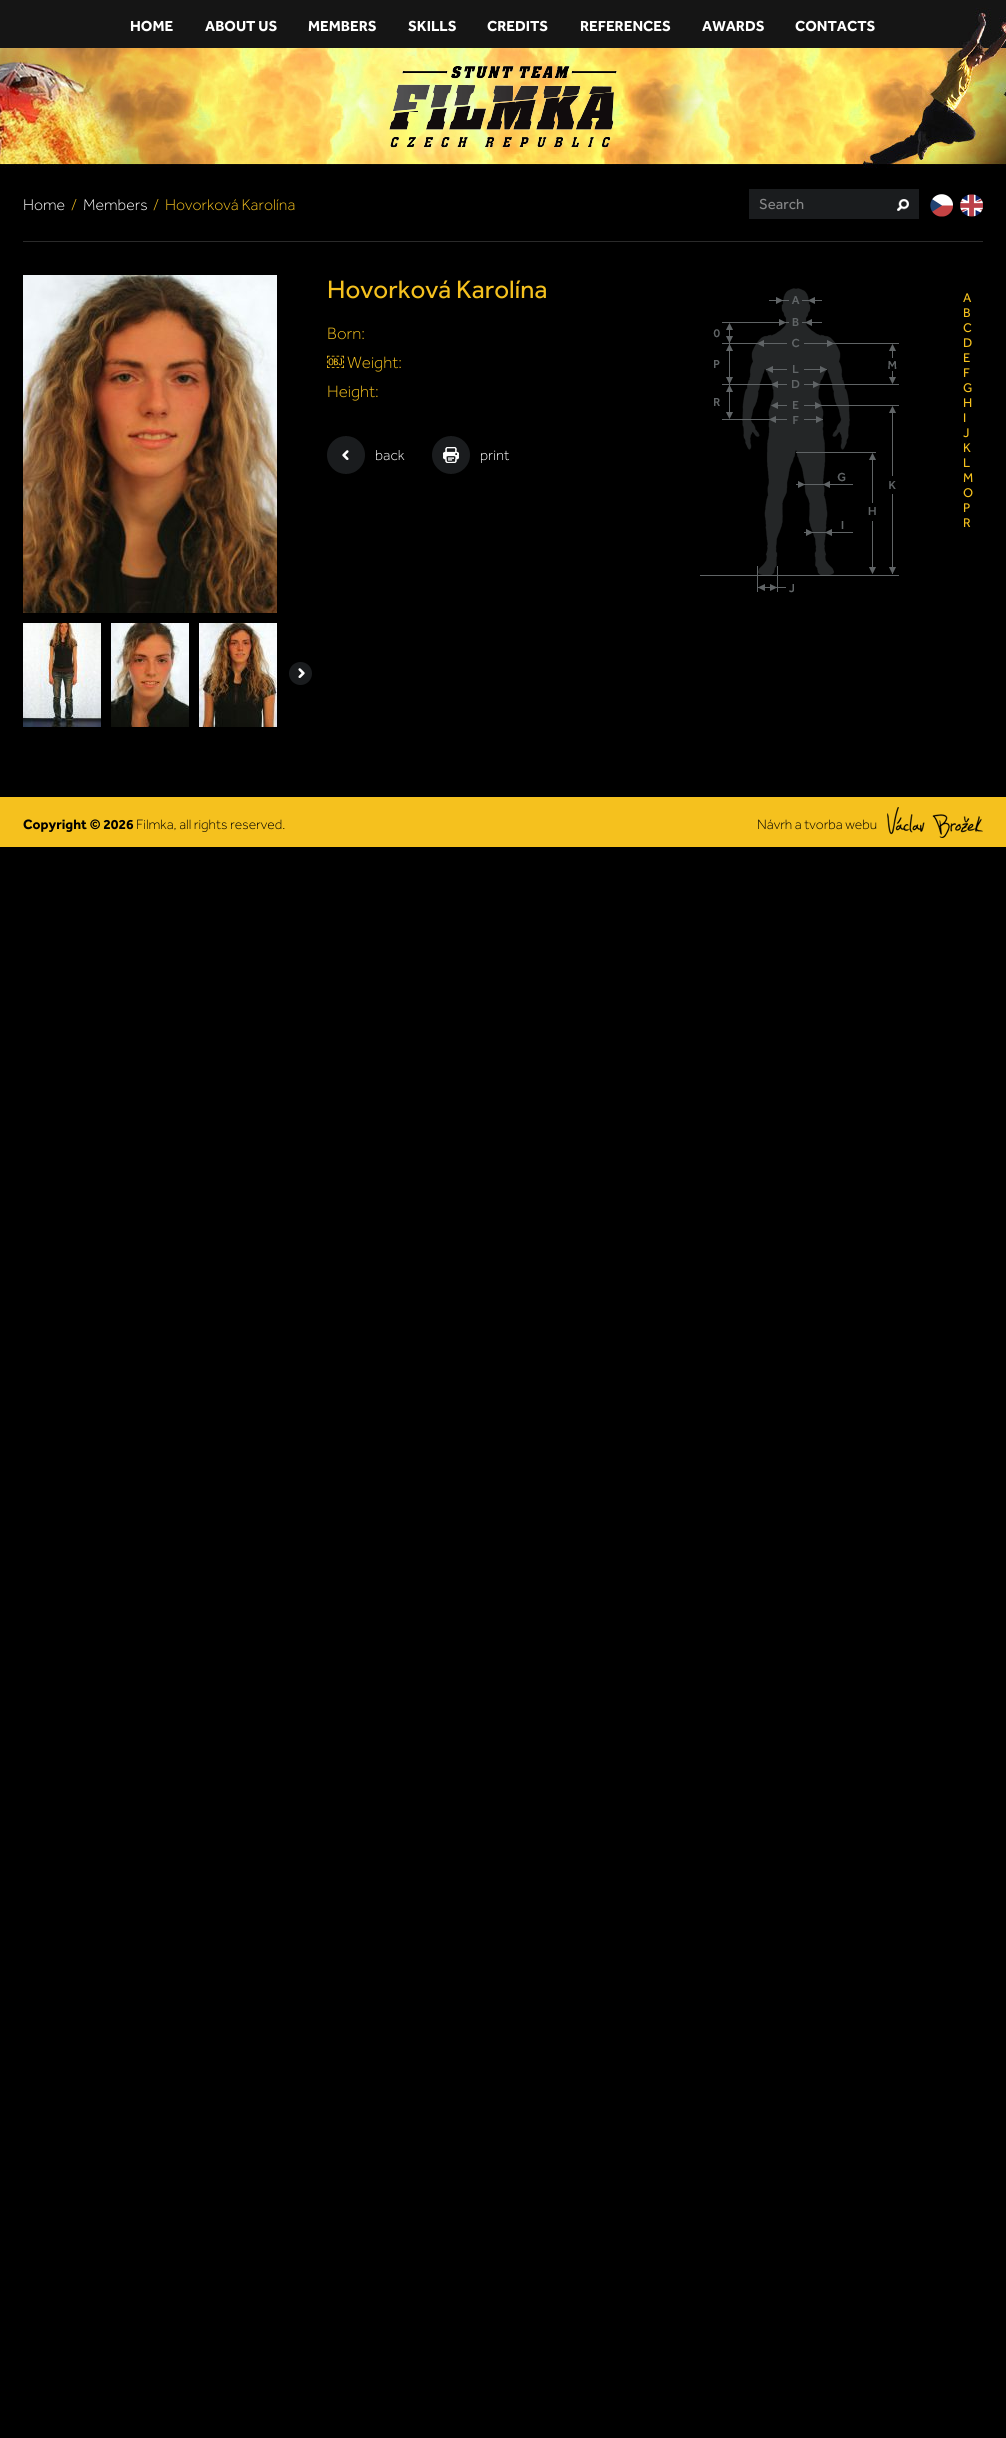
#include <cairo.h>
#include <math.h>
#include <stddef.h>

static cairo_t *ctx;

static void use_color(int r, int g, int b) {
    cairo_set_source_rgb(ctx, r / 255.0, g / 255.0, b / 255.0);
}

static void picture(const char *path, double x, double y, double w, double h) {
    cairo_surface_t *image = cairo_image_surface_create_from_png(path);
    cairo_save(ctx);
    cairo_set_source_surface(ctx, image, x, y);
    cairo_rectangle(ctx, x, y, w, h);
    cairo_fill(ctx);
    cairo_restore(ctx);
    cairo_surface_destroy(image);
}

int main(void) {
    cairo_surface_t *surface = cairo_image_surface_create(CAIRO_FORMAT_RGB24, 1006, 2438);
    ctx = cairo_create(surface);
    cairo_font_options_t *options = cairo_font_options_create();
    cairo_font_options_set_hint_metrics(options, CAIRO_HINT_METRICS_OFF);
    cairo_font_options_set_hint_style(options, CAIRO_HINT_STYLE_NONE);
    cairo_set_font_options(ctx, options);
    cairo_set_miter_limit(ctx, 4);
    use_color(0, 0, 0);
    cairo_paint(ctx);
    picture("img1.png", 0, 0, 1006, 168);
    cairo_select_font_face(ctx, "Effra", CAIRO_FONT_SLANT_NORMAL, CAIRO_FONT_WEIGHT_BOLD);
    cairo_set_font_size(ctx, 15);
    use_color(255, 255, 255);
    cairo_move_to(ctx, 130, 31);
    cairo_show_text(ctx, "HOME");
    cairo_move_to(ctx, 205, 31);
    cairo_show_text(ctx, "ABOUT US");
    cairo_move_to(ctx, 308, 31);
    cairo_show_text(ctx, "MEMBERS");
    cairo_move_to(ctx, 408, 31);
    cairo_show_text(ctx, "SKILLS");
    cairo_move_to(ctx, 487, 31);
    cairo_show_text(ctx, "CREDITS");
    cairo_move_to(ctx, 580, 31);
    cairo_show_text(ctx, "REFERENCES");
    cairo_move_to(ctx, 702, 31);
    cairo_show_text(ctx, "AWARDS");
    cairo_move_to(ctx, 795, 31);
    cairo_show_text(ctx, "CONTACTS");
    picture("img2.png", 389, 65, 228, 83);
    use_color(42, 42, 42);
    cairo_rectangle(ctx, 23, 241, 960, 1);
    cairo_fill(ctx);
    cairo_select_font_face(ctx, "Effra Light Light", CAIRO_FONT_SLANT_NORMAL, CAIRO_FONT_WEIGHT_NORMAL);
    cairo_set_font_size(ctx, 16);
    use_color(255, 255, 255);
    cairo_move_to(ctx, 23, 210);
    cairo_show_text(ctx, "Home");
    use_color(245, 193, 30);
    cairo_move_to(ctx, 71, 210);
    cairo_show_text(ctx, "/");
    use_color(255, 255, 255);
    cairo_move_to(ctx, 83, 210);
    cairo_show_text(ctx, "Members");
    use_color(245, 193, 30);
    cairo_move_to(ctx, 153, 210);
    cairo_show_text(ctx, "/");
    cairo_move_to(ctx, 165, 210);
    cairo_show_text(ctx, "Hovorková Karolína");
    use_color(26, 28, 30);
    cairo_rectangle(ctx, 749, 189, 170, 30);
    cairo_fill(ctx);
    cairo_select_font_face(ctx, "Effra", CAIRO_FONT_SLANT_NORMAL, CAIRO_FONT_WEIGHT_NORMAL);
    cairo_set_font_size(ctx, 15);
    use_color(134, 135, 136);
    cairo_move_to(ctx, 759, 209);
    cairo_show_text(ctx, "Search");
    picture("img3.png", 897, 199, 12, 12);
    picture("img4.png", 930, 194, 23, 23);
    picture("img5.png", 960, 194, 23, 23);
    picture("img6.png", 23, 275, 254, 338);
    picture("img7.png", 23, 623, 78, 104);
    picture("img8.png", 111, 623, 78, 104);
    picture("img9.png", 199, 623, 78, 104);
    picture("img10.png", 289, 662, 23, 23);
    cairo_set_font_size(ctx, 26);
    use_color(245, 193, 30);
    cairo_move_to(ctx, 327, 298);
    cairo_show_text(ctx, "Hovorková Karolína");
    cairo_select_font_face(ctx, "Effra Light Light", CAIRO_FONT_SLANT_NORMAL, CAIRO_FONT_WEIGHT_NORMAL);
    cairo_set_font_size(ctx, 17);
    cairo_move_to(ctx, 327, 339);
    cairo_show_text(ctx, "Born:");
    cairo_select_font_face(ctx, "Liberation Sans", CAIRO_FONT_SLANT_NORMAL, CAIRO_FONT_WEIGHT_NORMAL);
    cairo_move_to(ctx, 327, 368);
    cairo_show_text(ctx, "￼");
    cairo_select_font_face(ctx, "Effra Light Light", CAIRO_FONT_SLANT_NORMAL, CAIRO_FONT_WEIGHT_NORMAL);
    cairo_move_to(ctx, 347, 368);
    cairo_show_text(ctx, "Weight:");
    cairo_move_to(ctx, 327, 397);
    cairo_show_text(ctx, "Height:");
    picture("img11.png", 327, 436, 38, 38);
    cairo_set_font_size(ctx, 15);
    use_color(255, 255, 255);
    cairo_move_to(ctx, 375, 460);
    cairo_show_text(ctx, "back");
    picture("img12.png", 432, 436, 38, 38);
    cairo_move_to(ctx, 480, 460);
    cairo_show_text(ctx, "print");
    picture("img13.png", 700, 288, 199, 305);
    cairo_select_font_face(ctx, "Effra", CAIRO_FONT_SLANT_NORMAL, CAIRO_FONT_WEIGHT_NORMAL);
    cairo_set_font_size(ctx, 13);
    use_color(245, 193, 30);
    cairo_move_to(ctx, 963, 302);
    cairo_show_text(ctx, "A");
    cairo_move_to(ctx, 963, 317);
    cairo_show_text(ctx, "B");
    cairo_move_to(ctx, 963, 332);
    cairo_show_text(ctx, "C");
    cairo_move_to(ctx, 963, 347);
    cairo_show_text(ctx, "D");
    cairo_move_to(ctx, 963, 362);
    cairo_show_text(ctx, "E");
    cairo_move_to(ctx, 963, 377);
    cairo_show_text(ctx, "F");
    cairo_move_to(ctx, 963, 392);
    cairo_show_text(ctx, "G");
    cairo_move_to(ctx, 963, 407);
    cairo_show_text(ctx, "H");
    cairo_move_to(ctx, 963, 422);
    cairo_show_text(ctx, "I");
    cairo_move_to(ctx, 963, 437);
    cairo_show_text(ctx, "J");
    cairo_move_to(ctx, 963, 452);
    cairo_show_text(ctx, "K");
    cairo_move_to(ctx, 963, 467);
    cairo_show_text(ctx, "L");
    cairo_move_to(ctx, 963, 482);
    cairo_show_text(ctx, "M");
    cairo_move_to(ctx, 963, 497);
    cairo_show_text(ctx, "O");
    cairo_move_to(ctx, 963, 512);
    cairo_show_text(ctx, "P");
    cairo_move_to(ctx, 963, 527);
    cairo_show_text(ctx, "R");
    cairo_rectangle(ctx, 0, 797, 1006, 50);
    cairo_fill(ctx);
    cairo_select_font_face(ctx, "Effra", CAIRO_FONT_SLANT_NORMAL, CAIRO_FONT_WEIGHT_BOLD);
    cairo_set_font_size(ctx, 14);
    use_color(0, 0, 0);
    cairo_move_to(ctx, 23, 829);
    cairo_show_text(ctx, "Copyright © 2026");
    cairo_select_font_face(ctx, "Effra Light Light", CAIRO_FONT_SLANT_NORMAL, CAIRO_FONT_WEIGHT_NORMAL);
    cairo_move_to(ctx, 136, 829);
    cairo_show_text(ctx, "Filmka, all rights reserved.");
    cairo_move_to(ctx, 757, 829);
    cairo_show_text(ctx, "Návrh a tvorba webu");
    picture("img14.png", 887, 807, 96, 31);
    cairo_surface_write_to_png(surface, "result.png");
    cairo_font_options_destroy(options);
    cairo_destroy(ctx);
    cairo_surface_destroy(surface);
    return 0;
}
